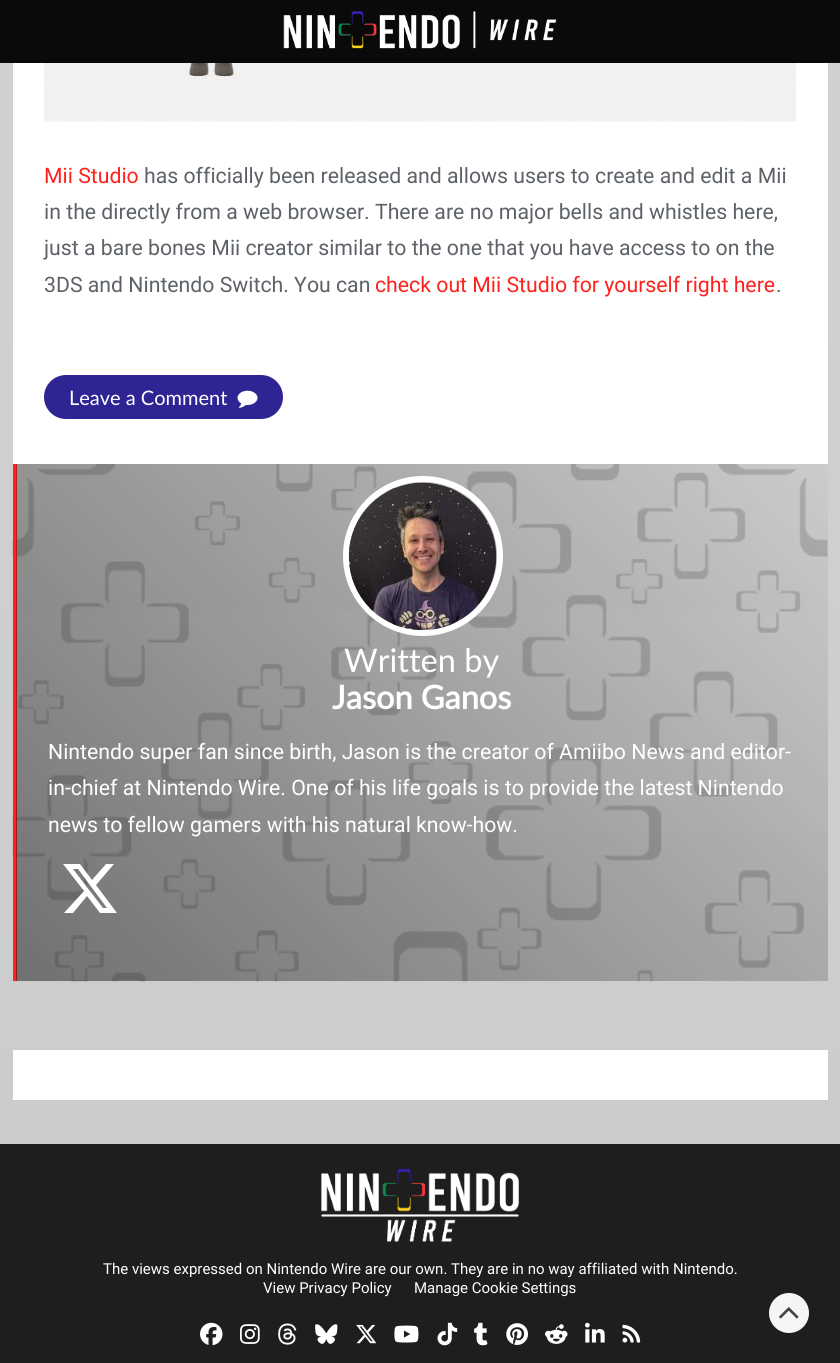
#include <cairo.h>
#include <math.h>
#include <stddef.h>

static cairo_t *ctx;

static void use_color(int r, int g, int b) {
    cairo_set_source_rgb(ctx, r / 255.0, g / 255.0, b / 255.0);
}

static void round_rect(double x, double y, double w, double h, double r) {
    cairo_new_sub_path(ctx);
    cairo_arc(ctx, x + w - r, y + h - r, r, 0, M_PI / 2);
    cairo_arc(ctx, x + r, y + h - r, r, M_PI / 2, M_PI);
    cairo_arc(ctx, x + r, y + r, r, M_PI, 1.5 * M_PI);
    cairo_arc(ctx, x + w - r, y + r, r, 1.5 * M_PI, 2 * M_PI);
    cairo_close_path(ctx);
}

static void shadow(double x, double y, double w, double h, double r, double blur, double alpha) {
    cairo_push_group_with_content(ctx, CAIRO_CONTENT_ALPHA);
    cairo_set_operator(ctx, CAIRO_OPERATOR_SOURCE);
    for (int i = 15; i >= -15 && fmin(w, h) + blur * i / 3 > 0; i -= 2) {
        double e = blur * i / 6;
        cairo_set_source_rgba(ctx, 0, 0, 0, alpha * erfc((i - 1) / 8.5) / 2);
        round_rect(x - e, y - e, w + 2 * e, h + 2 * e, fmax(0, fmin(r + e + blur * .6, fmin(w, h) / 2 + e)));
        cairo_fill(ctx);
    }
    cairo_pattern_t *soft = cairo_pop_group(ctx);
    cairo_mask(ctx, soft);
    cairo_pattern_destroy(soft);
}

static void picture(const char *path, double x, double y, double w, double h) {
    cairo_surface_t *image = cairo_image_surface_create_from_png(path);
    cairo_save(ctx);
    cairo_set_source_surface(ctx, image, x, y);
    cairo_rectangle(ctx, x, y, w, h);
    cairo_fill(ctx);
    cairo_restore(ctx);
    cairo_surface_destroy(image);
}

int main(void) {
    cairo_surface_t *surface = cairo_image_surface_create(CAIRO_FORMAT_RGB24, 840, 1363);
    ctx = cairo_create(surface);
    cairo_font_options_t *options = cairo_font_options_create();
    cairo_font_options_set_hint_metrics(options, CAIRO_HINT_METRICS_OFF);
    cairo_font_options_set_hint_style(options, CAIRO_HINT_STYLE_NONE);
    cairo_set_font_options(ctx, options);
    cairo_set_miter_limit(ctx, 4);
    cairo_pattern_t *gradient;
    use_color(255, 255, 255);
    cairo_paint(ctx);
    gradient = cairo_pattern_create_linear(420, 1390, 420, -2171);
    cairo_pattern_add_color_stop_rgba(gradient, 0, 0.796, 0.796, 0.796, 1);
    cairo_pattern_add_color_stop_rgba(gradient, 1, 0.843, 0.859, 0.847, 1);
    cairo_set_source(ctx, gradient);
    cairo_pattern_destroy(gradient);
    cairo_rectangle(ctx, 0, 63, 840, 1081);
    cairo_fill(ctx);
    cairo_save(ctx);
    cairo_set_fill_rule(ctx, CAIRO_FILL_RULE_EVEN_ODD);
    cairo_new_path(ctx);
    cairo_move_to(ctx, 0, 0);
    cairo_line_to(ctx, 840, 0);
    cairo_line_to(ctx, 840, 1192);
    cairo_line_to(ctx, 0, 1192);
    cairo_close_path(ctx);
    cairo_move_to(ctx, 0, -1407);
    cairo_line_to(ctx, 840, -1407);
    cairo_line_to(ctx, 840, 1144);
    cairo_line_to(ctx, 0, 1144);
    cairo_close_path(ctx);
    cairo_clip(ctx);
    use_color(0, 0, 0);
    shadow(0, -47, 840, 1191, 0, 15.5, 0.5);
    cairo_restore(ctx);
    use_color(10, 10, 10);
    cairo_rectangle(ctx, 0, 0, 840, 63);
    cairo_fill(ctx);
    picture("img1.png", 283, 11, 274, 38);
    use_color(255, 255, 255);
    cairo_rectangle(ctx, 13, 63, 815, 401);
    cairo_fill(ctx);
    picture("img2.png", 44, 63, 752, 59);
    cairo_select_font_face(ctx, "Roboto", CAIRO_FONT_SLANT_NORMAL, CAIRO_FONT_WEIGHT_NORMAL);
    cairo_set_font_size(ctx, 21.25);
    use_color(255, 33, 29);
    cairo_move_to(ctx, 44, 183);
    cairo_show_text(ctx, "Mii Studio");
    use_color(93, 98, 104);
    cairo_move_to(ctx, 144, 183);
    cairo_show_text(ctx, "has officially been released and allows users to create and edit a Mii");
    cairo_move_to(ctx, 44, 219);
    cairo_show_text(ctx, "in the directly from a web browser. There are no major bells and whistles here,");
    cairo_move_to(ctx, 44, 255);
    cairo_show_text(ctx, "just a bare bones Mii creator similar to the one that you have access to on the");
    cairo_move_to(ctx, 44, 292);
    cairo_show_text(ctx, "3DS and Nintendo Switch. You can");
    use_color(255, 33, 29);
    cairo_move_to(ctx, 375, 292);
    cairo_show_text(ctx, "check out Mii Studio for yourself right here");
    use_color(93, 98, 104);
    cairo_move_to(ctx, 776, 292);
    cairo_show_text(ctx, ".");
    use_color(46, 36, 147);
    round_rect(44, 375, 239, 44, 22);
    cairo_fill(ctx);
    cairo_select_font_face(ctx, "Lato", CAIRO_FONT_SLANT_NORMAL, CAIRO_FONT_WEIGHT_NORMAL);
    cairo_set_font_size(ctx, 20);
    use_color(255, 255, 255);
    cairo_move_to(ctx, 69, 405);
    cairo_show_text(ctx, "Leave a Comment");
    picture("img3.png", 237, 390, 21, 18);
    use_color(204, 204, 204);
    cairo_rectangle(ctx, 17, 464, 811, 147);
    cairo_fill(ctx);
    picture("img4.png", 12, 464, 816, 518);
    use_color(255, 33, 29);
    cairo_rectangle(ctx, 13, 464, 4, 517);
    cairo_fill(ctx);
    gradient = cairo_pattern_create_linear(90, 1055, 754, 390);
    cairo_pattern_add_color_stop_rgba(gradient, 0, 0.075, 0.075, 0.075, 0.5);
    cairo_pattern_add_color_stop_rgba(gradient, 1, 0.075, 0.075, 0.075, 0);
    cairo_set_source(ctx, gradient);
    cairo_pattern_destroy(gradient);
    cairo_rectangle(ctx, 16, 464, 812, 517);
    cairo_fill(ctx);
    cairo_arc(ctx, 423, 556, 77, 0, 2 * M_PI);
    use_color(255, 255, 255);
    cairo_set_line_width(ctx, 6);
    cairo_stroke(ctx);
    picture("img5.png", 348, 482, 149, 149);
    cairo_set_font_size(ctx, 32.5);
    cairo_move_to(ctx, 344, 672);
    cairo_show_text(ctx, "Written by");
    cairo_select_font_face(ctx, "Lato", CAIRO_FONT_SLANT_NORMAL, CAIRO_FONT_WEIGHT_BOLD);
    cairo_move_to(ctx, 332, 709);
    cairo_show_text(ctx, "Jason Ganos");
    cairo_select_font_face(ctx, "Roboto", CAIRO_FONT_SLANT_NORMAL, CAIRO_FONT_WEIGHT_NORMAL);
    cairo_set_font_size(ctx, 21.25);
    cairo_move_to(ctx, 48, 759);
    cairo_show_text(ctx, "Nintendo super fan since birth, Jason is the creator of Amiibo News and editor-");
    cairo_move_to(ctx, 48, 795);
    cairo_show_text(ctx, "in-chief at Nintendo Wire. One of his life goals is to provide the latest Nintendo");
    cairo_move_to(ctx, 48, 832);
    cairo_show_text(ctx, "news to fellow gamers with his natural know-how.");
    cairo_new_path(ctx);
    cairo_move_to(ctx, 106, 864);
    cairo_line_to(ctx, 114, 864);
    cairo_line_to(ctx, 106, 864);
    cairo_line_to(ctx, 114, 864);
    cairo_line_to(ctx, 96, 885);
    cairo_line_to(ctx, 117, 913);
    cairo_line_to(ctx, 100, 913);
    cairo_line_to(ctx, 87, 896);
    cairo_line_to(ctx, 73, 913);
    cairo_line_to(ctx, 64, 913);
    cairo_line_to(ctx, 84, 891);
    cairo_line_to(ctx, 63, 864);
    cairo_line_to(ctx, 80, 864);
    cairo_line_to(ctx, 92, 880);
    cairo_close_path(ctx);
    cairo_move_to(ctx, 103, 908);
    cairo_line_to(ctx, 107, 908);
    cairo_line_to(ctx, 103, 908);
    cairo_line_to(ctx, 107, 908);
    cairo_line_to(ctx, 78, 869);
    cairo_line_to(ctx, 73, 869);
    cairo_close_path(ctx);
    cairo_fill(ctx);
    cairo_rectangle(ctx, 13, 1050, 815, 50);
    cairo_fill(ctx);
    use_color(30, 30, 30);
    cairo_rectangle(ctx, 0, 1144, 840, 219);
    cairo_fill(ctx);
    picture("img6.png", 321, 1169, 198, 73);
    cairo_set_font_size(ctx, 15);
    use_color(255, 255, 255);
    cairo_move_to(ctx, 103, 1274);
    cairo_show_text(ctx, "The views expressed on Nintendo Wire are our own. They are in no way affiliated with Nintendo.");
    cairo_move_to(ctx, 263, 1293);
    cairo_show_text(ctx, "View Privacy Policy");
    cairo_move_to(ctx, 414, 1293);
    cairo_show_text(ctx, "Manage Cookie Settings");
    picture("img7.png", 200, 1322, 23, 24);
    picture("img8.png", 240, 1324, 20, 20);
    picture("img9.png", 278, 1323, 19, 22);
    picture("img10.png", 315, 1324, 23, 20);
    picture("img11.png", 356, 1324, 21, 20);
    picture("img12.png", 394, 1325, 25, 18);
    picture("img13.png", 437, 1322, 21, 24);
    picture("img14.png", 474, 1322, 14, 24);
    picture("img15.png", 506, 1323, 22, 22);
    picture("img16.png", 545, 1324, 23, 20);
    picture("img17.png", 585, 1322, 20, 21);
    picture("img18.png", 622, 1324, 19, 19);
    use_color(245, 245, 245);
    cairo_arc(ctx, 789, 1313, 20, 0, 2 * M_PI);
    cairo_fill(ctx);
    picture("img19.png", 779, 1307, 20, 12);
    cairo_surface_write_to_png(surface, "result.png");
    cairo_font_options_destroy(options);
    cairo_destroy(ctx);
    cairo_surface_destroy(surface);
    return 0;
}
